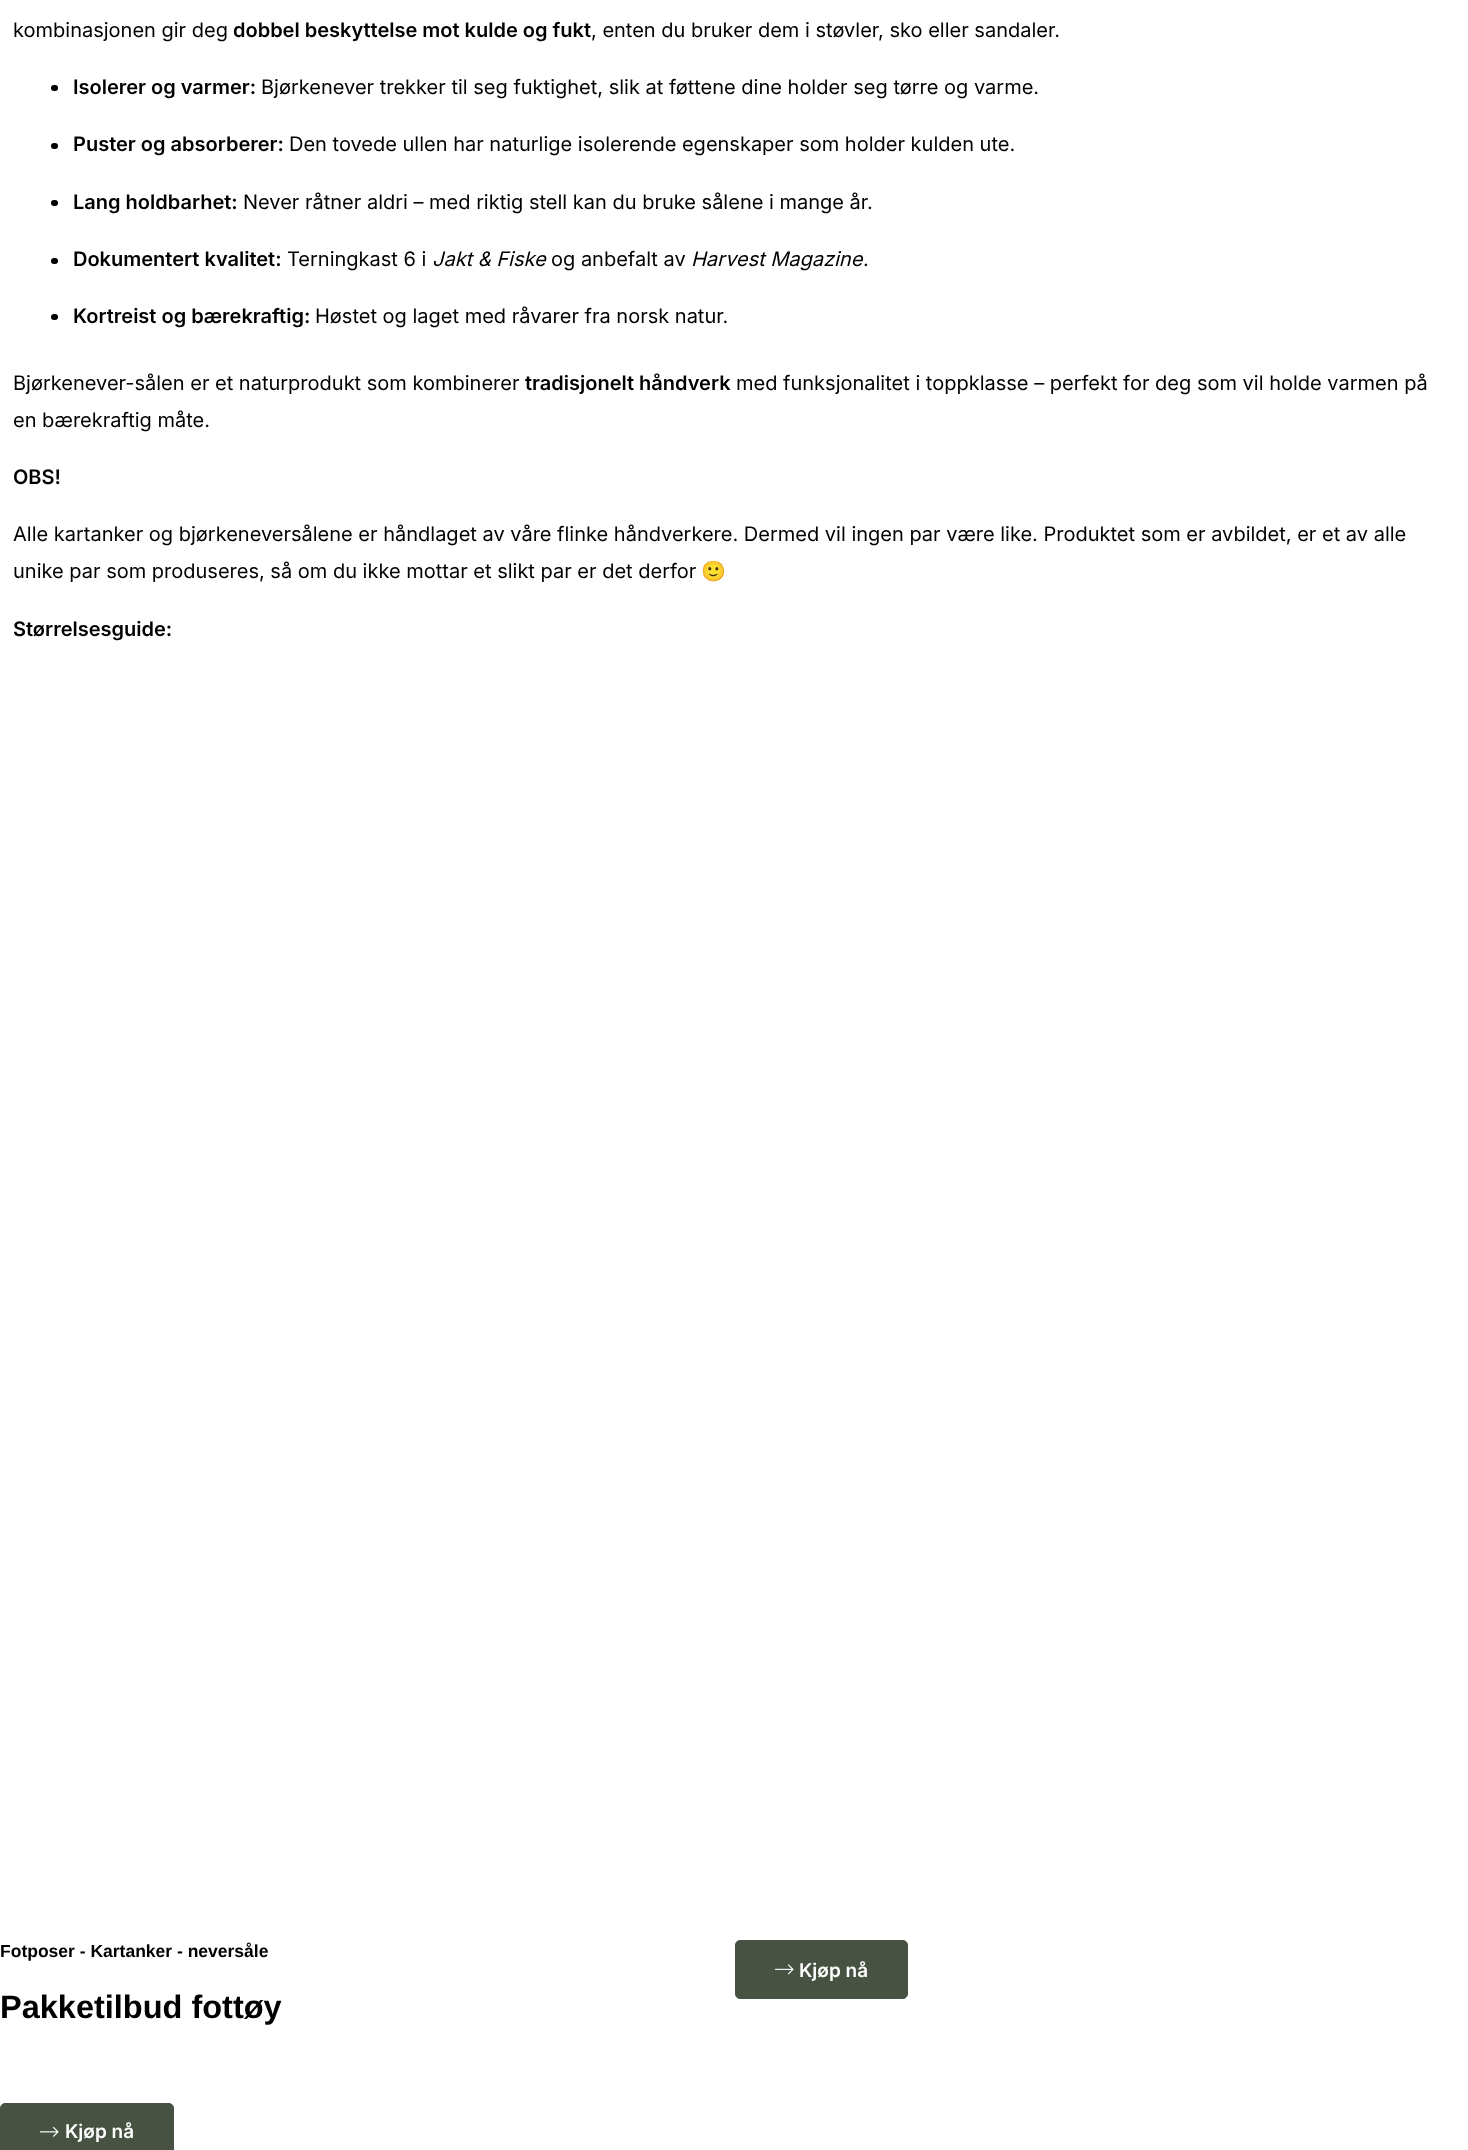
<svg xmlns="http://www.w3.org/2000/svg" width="1468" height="2150">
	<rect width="100%" height="100%" fill="#FFFFFF" />
	<text x="13" y="37" font-family="Inter" font-size="20" fill="#000000">kombinasjonen gir deg</text>
	<text x="233" y="37" font-family="Inter" font-size="20" font-weight="600" fill="#000000">dobbel beskyttelse mot kulde og fukt</text>
	<text x="591" y="37" font-family="Inter" font-size="20" fill="#000000">, enten du bruker dem i støvler, sko eller sandaler.</text>
	<rect x="51" y="85" width="7" height="6" rx="3" fill="#000000" />
	<text x="73" y="94" font-family="Inter" font-size="20" font-weight="600" fill="#000000">Isolerer og varmer:</text>
	<text x="261" y="94" font-family="Inter" font-size="20" fill="#000000">Bjørkenever trekker til seg fuktighet, slik at føttene dine holder seg tørre og varme.</text>
	<rect x="51" y="143" width="7" height="6" rx="3" fill="#000000" />
	<text x="73" y="151" font-family="Inter" font-size="20" font-weight="600" fill="#000000">Puster og absorberer:</text>
	<text x="289" y="151" font-family="Inter" font-size="20" fill="#000000">Den tovede ullen har naturlige isolerende egenskaper som holder kulden ute.</text>
	<rect x="51" y="200" width="7" height="6" rx="3" fill="#000000" />
	<text x="73" y="209" font-family="Inter" font-size="20" font-weight="600" fill="#000000">Lang holdbarhet:</text>
	<text x="243" y="209" font-family="Inter" font-size="20" fill="#000000">Never råtner aldri – med riktig stell kan du bruke sålene i mange år.</text>
	<rect x="51" y="258" width="7" height="6" rx="3" fill="#000000" />
	<text x="73" y="266" font-family="Inter" font-size="20" font-weight="600" fill="#000000">Dokumentert kvalitet:</text>
	<text x="287" y="266" font-family="Inter" font-size="20" fill="#000000">Terningkast 6 i</text>
	<text x="432" y="266" font-family="Inter" font-size="20" font-style="italic" fill="#000000">Jakt &amp; Fiske</text>
	<text x="551" y="266" font-family="Inter" font-size="20" fill="#000000">og anbefalt av</text>
	<text x="691" y="266" font-family="Inter" font-size="20" font-style="italic" fill="#000000">Harvest Magazine</text>
	<text x="863" y="266" font-family="Inter" font-size="20" fill="#000000">.</text>
	<rect x="51" y="314" width="7" height="6" rx="3" fill="#000000" />
	<text x="73" y="323" font-family="Inter" font-size="20" font-weight="600" fill="#000000">Kortreist og bærekraftig:</text>
	<g font-family="Inter" font-size="20" fill="#000000">
		<text x="315" y="323">Høstet og laget med råvarer fra norsk natur.</text>
		<text x="13" y="390">Bjørkenever-sålen er et naturprodukt som kombinerer</text>
	</g>
	<text x="525" y="390" font-family="Inter" font-size="20" font-weight="600" fill="#000000">tradisjonelt håndverk</text>
	<g font-family="Inter" font-size="20" fill="#000000">
		<text x="736" y="390">med funksjonalitet i toppklasse – perfekt for deg som vil holde varmen på</text>
		<text x="13" y="427">en bærekraftig måte.</text>
	</g>
	<text x="13" y="484" font-family="Inter" font-size="20" font-weight="600" fill="#000000">OBS!</text>
	<g font-family="Inter" font-size="20" fill="#000000">
		<text x="13" y="541">Alle kartanker og bjørkeneversålene er håndlaget av våre flinke håndverkere. Dermed vil ingen par være like. Produktet som er avbildet, er et av alle</text>
		<text x="13" y="578">unike par som produseres, så om du ikke mottar et slikt par er det derfor</text>
	</g>
	<text x="701" y="578" font-family="Noto Color Emoji" font-size="20" fill="#000000">🙂</text>
	<text x="13" y="636" font-family="Inter" font-size="20" font-weight="600" fill="#000000">Størrelsesguide:</text>
	<text x="0" y="1957" font-family="Liberation Sans" font-size="17.5" font-weight="700" fill="#000000">Fotposer - Kartanker - neversåle</text>
	<text x="0" y="2018" font-family="Liberation Sans" font-size="32.5" font-weight="700" fill="#000000">Pakketilbud fottøy</text>
	<rect x="0.5" y="2103.5" width="173" height="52" rx="4.5" fill="#475242" stroke="#475242" />
	<image x="40" y="2126" width="19" height="11" href="assets/img1.png" />
	<text x="65" y="2138" font-family="Inter" font-size="19" font-weight="600" fill="#FFFFFF">Kjøp nå</text>
	<rect x="735.5" y="1940.5" width="172" height="58" rx="4.5" fill="#475242" stroke="#475242" />
	<image x="775" y="1964" width="19" height="11" href="assets/img2.png" />
	<text x="799" y="1977" font-family="Inter" font-size="19" font-weight="600" fill="#FFFFFF">Kjøp nå</text>
</svg>
